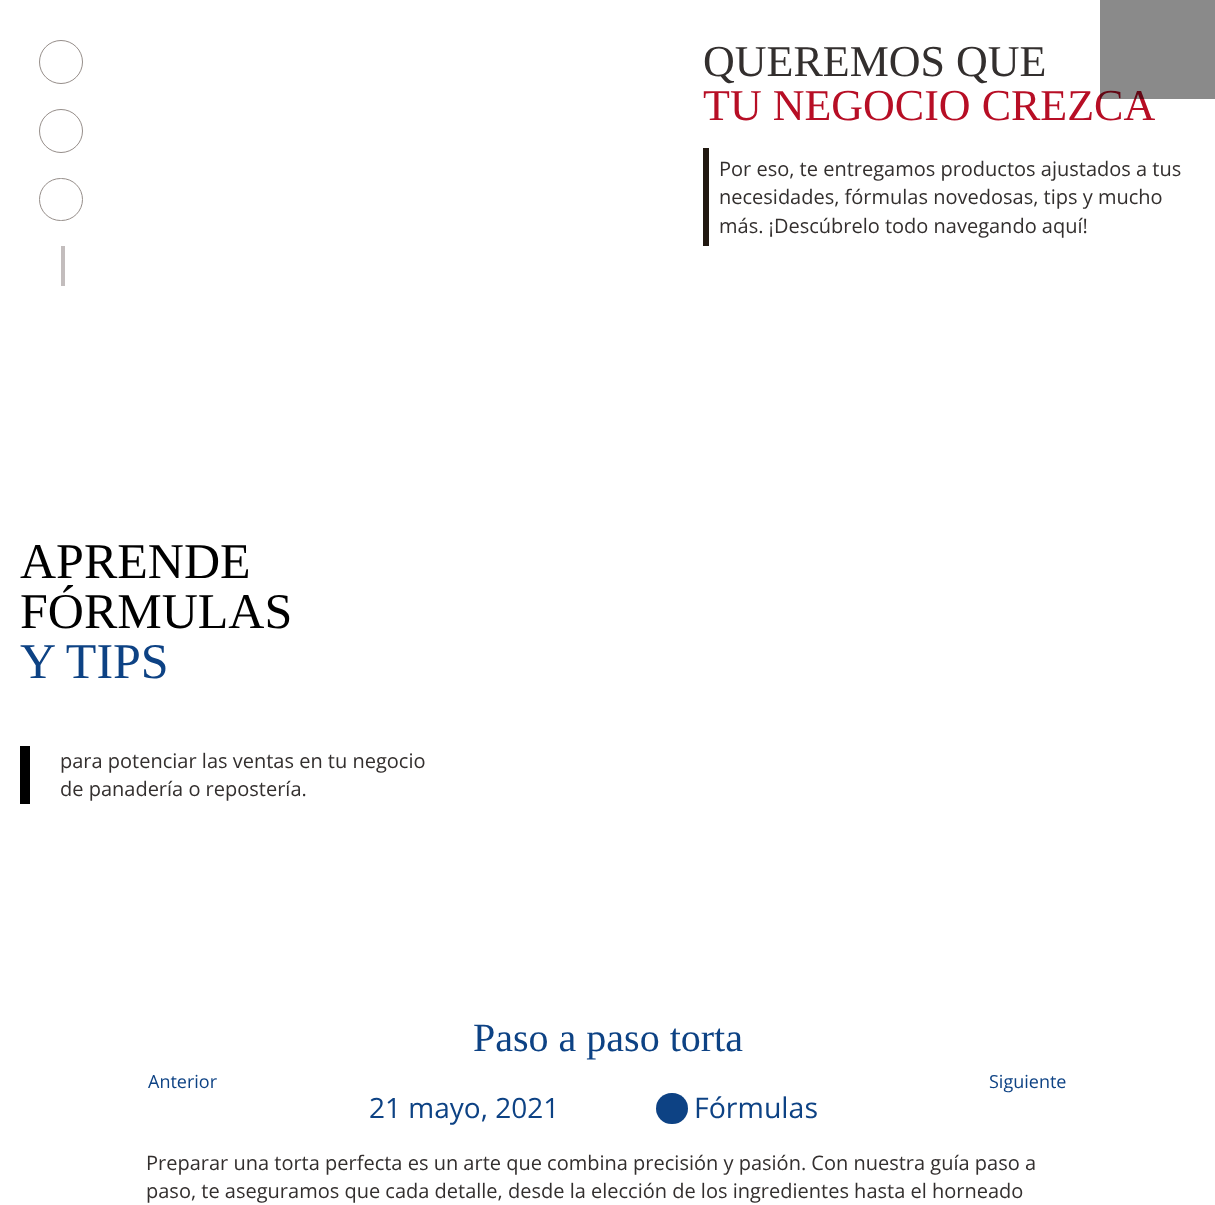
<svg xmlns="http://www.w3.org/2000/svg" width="1215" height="1205">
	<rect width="100%" height="100%" fill="#FFFFFF" />
	<circle cx="61" cy="62" r="21.5" fill="none" stroke="#968E8A" />
	<circle cx="61" cy="131" r="21.5" fill="none" stroke="#968E8A" />
	<rect x="39.5" y="178.5" width="43" height="42" rx="21" fill="none" stroke="#968E8A" />
	<rect x="61" y="246" width="4" height="40" fill="#C3BDBD" />
	<text x="703" y="120" font-family="Liberation Serif" font-size="44" fill="#B70E25">TU NEGOCIO CREZCA</text>
	<rect x="1100" y="0" width="115" height="99" fill="#000000" fill-opacity="0.46" />
	<text x="703" y="76" font-family="Liberation Serif" font-size="44" fill="#332F2E">QUEREMOS QUE</text>
	<rect x="703" y="148" width="6" height="98" fill="#211911" />
	<g font-family="Open Sans" font-size="20" fill="#332F2E">
		<text x="719" y="176">Por eso, te entregamos productos ajustados a tus</text>
		<text x="719" y="204">necesidades, fórmulas novedosas, tips y mucho</text>
		<text x="719" y="233">más. ¡Descúbrelo todo navegando aquí!</text>
	</g>
	<g font-family="Liberation Serif" font-size="50" fill="#000000">
		<text x="20" y="578">APRENDE</text>
		<text x="20" y="628">FÓRMULAS</text>
	</g>
	<text x="20" y="678" font-family="Liberation Serif" font-size="50" fill="#0D4284">Y TIPS</text>
	<rect x="20" y="746" width="10" height="58" fill="#000000" />
	<g font-family="Open Sans" font-size="20" fill="#332F2E">
		<text x="60" y="768">para potenciar las ventas en tu negocio</text>
		<text x="60" y="796">de panadería o repostería.</text>
	</g>
	<text x="473" y="1051" font-family="Liberation Serif" font-size="40" fill="#0D4284">Paso a paso torta</text>
	<g font-family="Open Sans" font-size="18" fill="#0D4284">
		<text x="148" y="1088">Anterior</text>
		<text x="989" y="1088">Siguiente</text>
	</g>
	<text x="369" y="1118" font-family="Open Sans" font-size="28" fill="#0D4284">21 mayo, 2021</text>
	<rect x="656" y="1093" width="32" height="31" rx="15.5" fill="#0D4284" />
	<text x="694" y="1118" font-family="Open Sans" font-size="28.5" fill="#0D4284">Fórmulas</text>
	<g font-family="Open Sans" font-size="20" fill="#332F2E">
		<text x="146" y="1170">Preparar una torta perfecta es un arte que combina precisión y pasión. Con nuestra guía paso a</text>
		<text x="146" y="1198">paso, te aseguramos que cada detalle, desde la elección de los ingredientes hasta el horneado</text>
	</g>
</svg>
